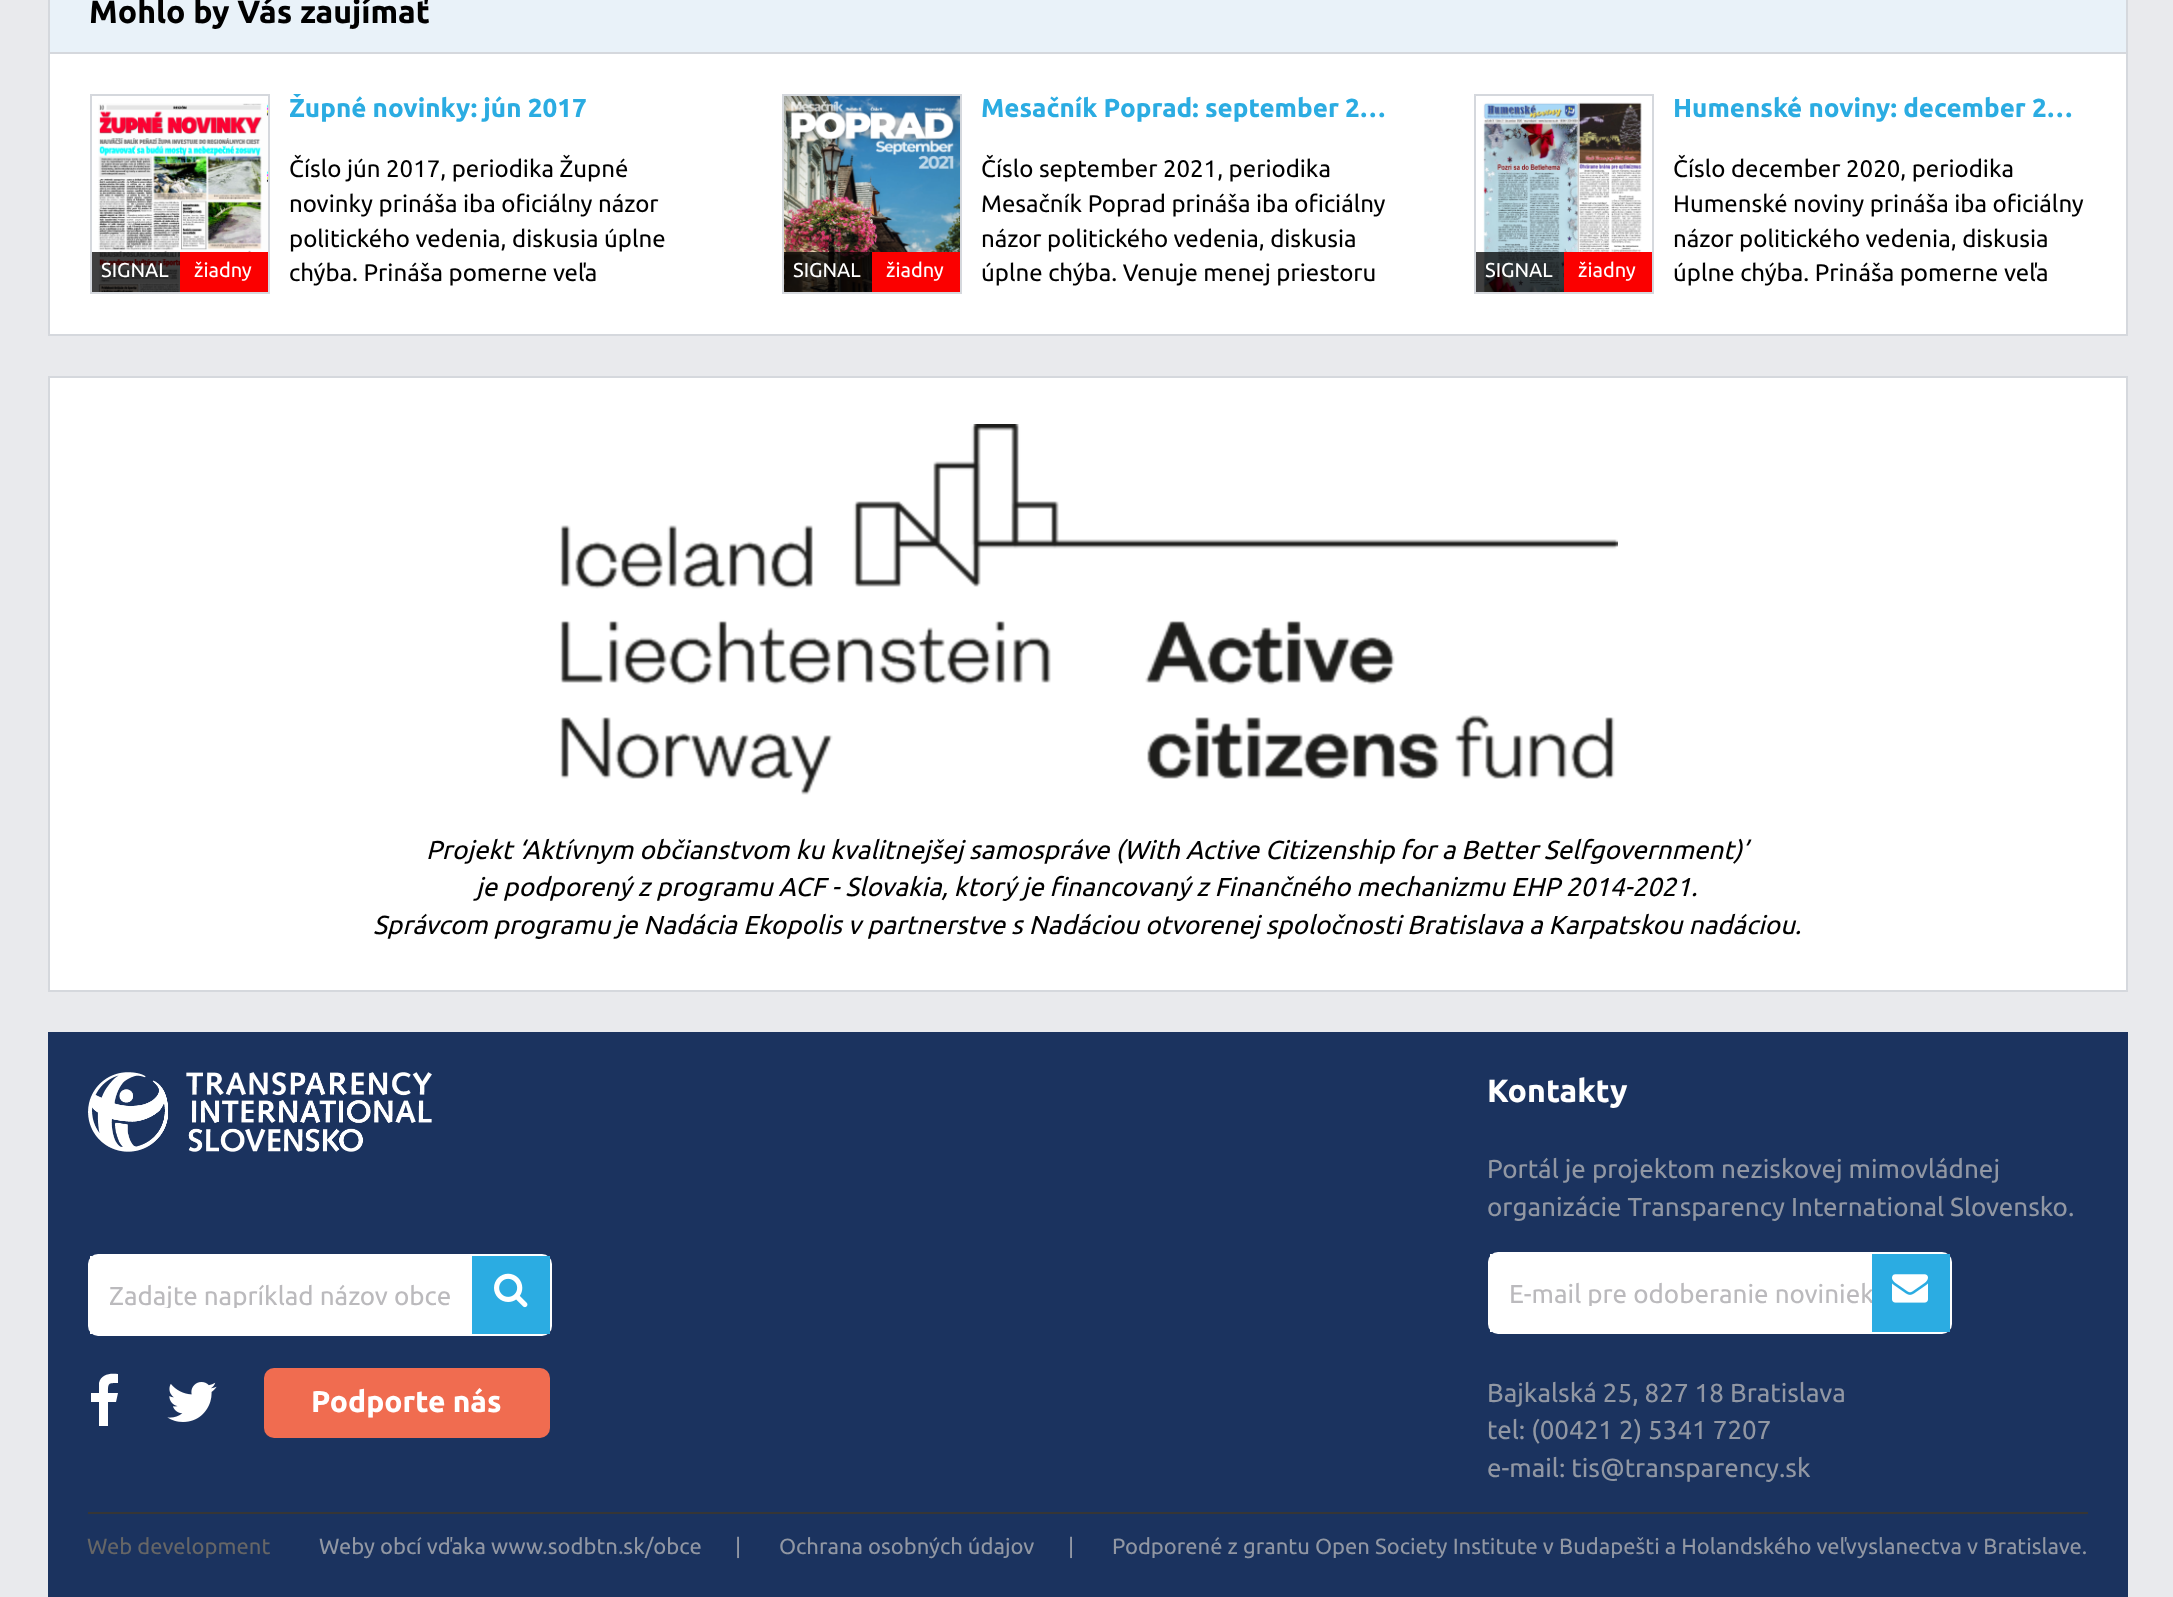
<svg xmlns="http://www.w3.org/2000/svg" width="2173" height="1597">
	<defs>
		<clipPath id="clip1"><rect x="290" y="94" width="412" height="34" /></clipPath>
		<clipPath id="clip2"><rect x="110" y="1280" width="362" height="28" /></clipPath>
		<clipPath id="clip3"><rect x="1510" y="1278" width="362" height="28" /></clipPath>
	</defs>
	<rect width="100%" height="100%" fill="#E9EAED" />
	<rect x="50" y="54" width="2076" height="280" fill="#FFFFFF" />
	<rect x="49" y="-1" width="2078" height="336" fill="none" stroke="#D5D8DD" stroke-width="2" />
	<rect x="50" y="0" width="2076" height="52" fill="#E9F2F9" />
	<rect x="50" y="52" width="2076" height="2" fill="#D5D8DD" />
	<text x="89" y="23" font-family="Ubuntu" font-size="32" font-weight="700" fill="#000000">Mohlo by Vás zaujímať</text>
	<rect x="91" y="95" width="178" height="198" fill="none" stroke="#D5D8DD" stroke-width="2" />
	<image x="98" y="103" width="170" height="189" href="assets/img1.png" />
	<rect x="92" y="252" width="88" height="40" fill="#000000" fill-opacity="0.75" />
	<text x="101" y="277" font-family="Ubuntu" font-size="20" fill="#FFFFFF">SIGNAL</text>
	<rect x="180" y="252" width="88" height="40" fill="#FB0000" />
	<text x="194" y="277" font-family="Ubuntu" font-size="20" fill="#FFFFFF">žiadny</text>
	<g clip-path="url(#clip1)">
		<text x="289" y="117" font-family="Ubuntu" font-size="26" font-weight="700" fill="#2BACE2">Župné novinky: jún 2017</text>
	</g>
	<g font-family="Ubuntu" font-size="24" fill="#000000">
		<text x="289" y="177">Číslo jún 2017, periodika Župné</text>
		<text x="289" y="212">novinky prináša iba oficiálny názor</text>
		<text x="289" y="247">politického vedenia, diskusia úplne</text>
		<text x="289" y="281">chýba. Prináša pomerne veľa</text>
	</g>
	<rect x="783" y="95" width="178" height="198" fill="none" stroke="#D5D8DD" stroke-width="2" />
	<image x="784" y="96" width="176" height="196" href="assets/img2.png" />
	<rect x="784" y="252" width="88" height="40" fill="#000000" fill-opacity="0.75" />
	<text x="793" y="277" font-family="Ubuntu" font-size="20" fill="#FFFFFF">SIGNAL</text>
	<rect x="872" y="252" width="88" height="40" fill="#FB0000" />
	<text x="886" y="277" font-family="Ubuntu" font-size="20" fill="#FFFFFF">žiadny</text>
	<text x="981" y="117" font-family="Ubuntu" font-size="26" font-weight="700" fill="#2BACE2">Mesačník Poprad: september 2…</text>
	<g font-family="Ubuntu" font-size="24" fill="#000000">
		<text x="981" y="177">Číslo september 2021, periodika</text>
		<text x="981" y="212">Mesačník Poprad prináša iba oficiálny</text>
		<text x="981" y="247">názor politického vedenia, diskusia</text>
		<text x="981" y="281">úplne chýba. Venuje menej priestoru</text>
	</g>
	<rect x="1475" y="95" width="178" height="198" fill="none" stroke="#D5D8DD" stroke-width="2" />
	<image x="1483" y="102" width="159" height="190" href="assets/img3.png" />
	<rect x="1476" y="252" width="88" height="40" fill="#000000" fill-opacity="0.75" />
	<text x="1485" y="277" font-family="Ubuntu" font-size="20" fill="#FFFFFF">SIGNAL</text>
	<rect x="1564" y="252" width="88" height="40" fill="#FB0000" />
	<text x="1578" y="277" font-family="Ubuntu" font-size="20" fill="#FFFFFF">žiadny</text>
	<text x="1673" y="117" font-family="Ubuntu" font-size="26" font-weight="700" fill="#2BACE2">Humenské noviny: december 2…</text>
	<g font-family="Ubuntu" font-size="24" fill="#000000">
		<text x="1673" y="177">Číslo december 2020, periodika</text>
		<text x="1673" y="212">Humenské noviny prináša iba oficiálny</text>
		<text x="1673" y="247">názor politického vedenia, diskusia</text>
		<text x="1673" y="281">úplne chýba. Prináša pomerne veľa</text>
	</g>
	<rect x="49" y="377" width="2078" height="614" fill="#FFFFFF" stroke="#D5D8DD" stroke-width="2" />
	<image x="560" y="424" width="1058" height="371" href="assets/img4.png" />
	<g font-family="Ubuntu" font-size="26" font-style="italic" fill="#000000">
		<text x="426" y="859">Projekt ‘Aktívnym občianstvom ku kvalitnejšej samospráve (With Active Citizenship for a Better Selfgovernment)’</text>
		<text x="476" y="896">je podporený z programu ACF - Slovakia, ktorý je financovaný z Finančného mechanizmu EHP 2014-2021.</text>
		<text x="373" y="934">Správcom programu je Nadácia Ekopolis v partnerstve s Nadáciou otvorenej spoločnosti Bratislava a Karpatskou nadáciou.</text>
	</g>
	<rect x="48" y="1032" width="2080" height="565" fill="#1B335F" />
	<image x="88" y="1072" width="344" height="80" href="assets/img5.png" />
	<rect x="88" y="1254" width="464" height="82" rx="10" fill="#FFFFFF" />
	<rect x="90" y="1256" width="2" height="78" fill="#FFFFFF" />
	<g clip-path="url(#clip2)">
		<text x="109" y="1305" font-family="Ubuntu" font-size="26" fill="#BBBABD">Zadajte napríklad názov obce</text>
	</g>
	<rect x="472" y="1256" width="78" height="78" fill="#2BACE2" />
	<image x="494" y="1273" width="34" height="35" href="assets/img6.png" />
	<path d="M118 1374V1383C108 1383 108 1383 108 1393H118L116 1402H108V1426H99V1402H91V1393H99V1383C101 1374 110 1373 118 1374Z" fill="#FFFFFF" />
	<image x="167" y="1382" width="50" height="40" href="assets/img7.png" />
	<rect x="264" y="1368" width="286" height="70" rx="10" fill="#F06C50" />
	<text x="311" y="1412" font-family="Ubuntu" font-size="30" font-weight="700" fill="#FFFFFF">Podporte nás</text>
	<text x="1487" y="1102" font-family="Ubuntu" font-size="32" font-weight="700" fill="#FFFFFF">Kontakty</text>
	<g font-family="Ubuntu" font-size="26" fill="#9197A3">
		<text x="1487" y="1178">Portál je projektom neziskovej mimovládnej</text>
		<text x="1487" y="1216">organizácie Transparency International Slovensko.</text>
	</g>
	<rect x="1488" y="1252" width="464" height="82" rx="10" fill="#FFFFFF" />
	<rect x="1490" y="1254" width="2" height="78" fill="#FFFFFF" />
	<g clip-path="url(#clip3)">
		<text x="1509" y="1303" font-family="Ubuntu" font-size="26" fill="#BBBABD">E-mail pre odoberanie noviniek</text>
	</g>
	<rect x="1872" y="1254" width="78" height="78" fill="#2BACE2" />
	<image x="1892" y="1274" width="36" height="29" href="assets/img8.png" />
	<g font-family="Ubuntu" font-size="26" fill="#9197A3">
		<text x="1487" y="1402">Bajkalská 25, 827 18 Bratislava</text>
		<text x="1487" y="1439">tel: (00421 2) 5341 7207</text>
		<text x="1487" y="1477">e-mail: tis@transparency.sk</text>
	</g>
	<rect x="88" y="1512" width="2000" height="2" fill="#363636" />
	<text x="87" y="1554" font-family="Ubuntu" font-size="22" fill="#666666">Web development</text>
	<g font-family="Ubuntu" font-size="22" fill="#9197A3">
		<text x="319" y="1554">Weby obcí vďaka www.sodbtn.sk/obce</text>
		<text x="735" y="1554">|</text>
		<text x="779" y="1554">Ochrana osobných údajov</text>
		<text x="1068" y="1554">|</text>
		<text x="1112" y="1554">Podporené z grantu Open Society Institute v Budapešti a Holandského veľvyslanectva v Bratislave.</text>
	</g>
</svg>
